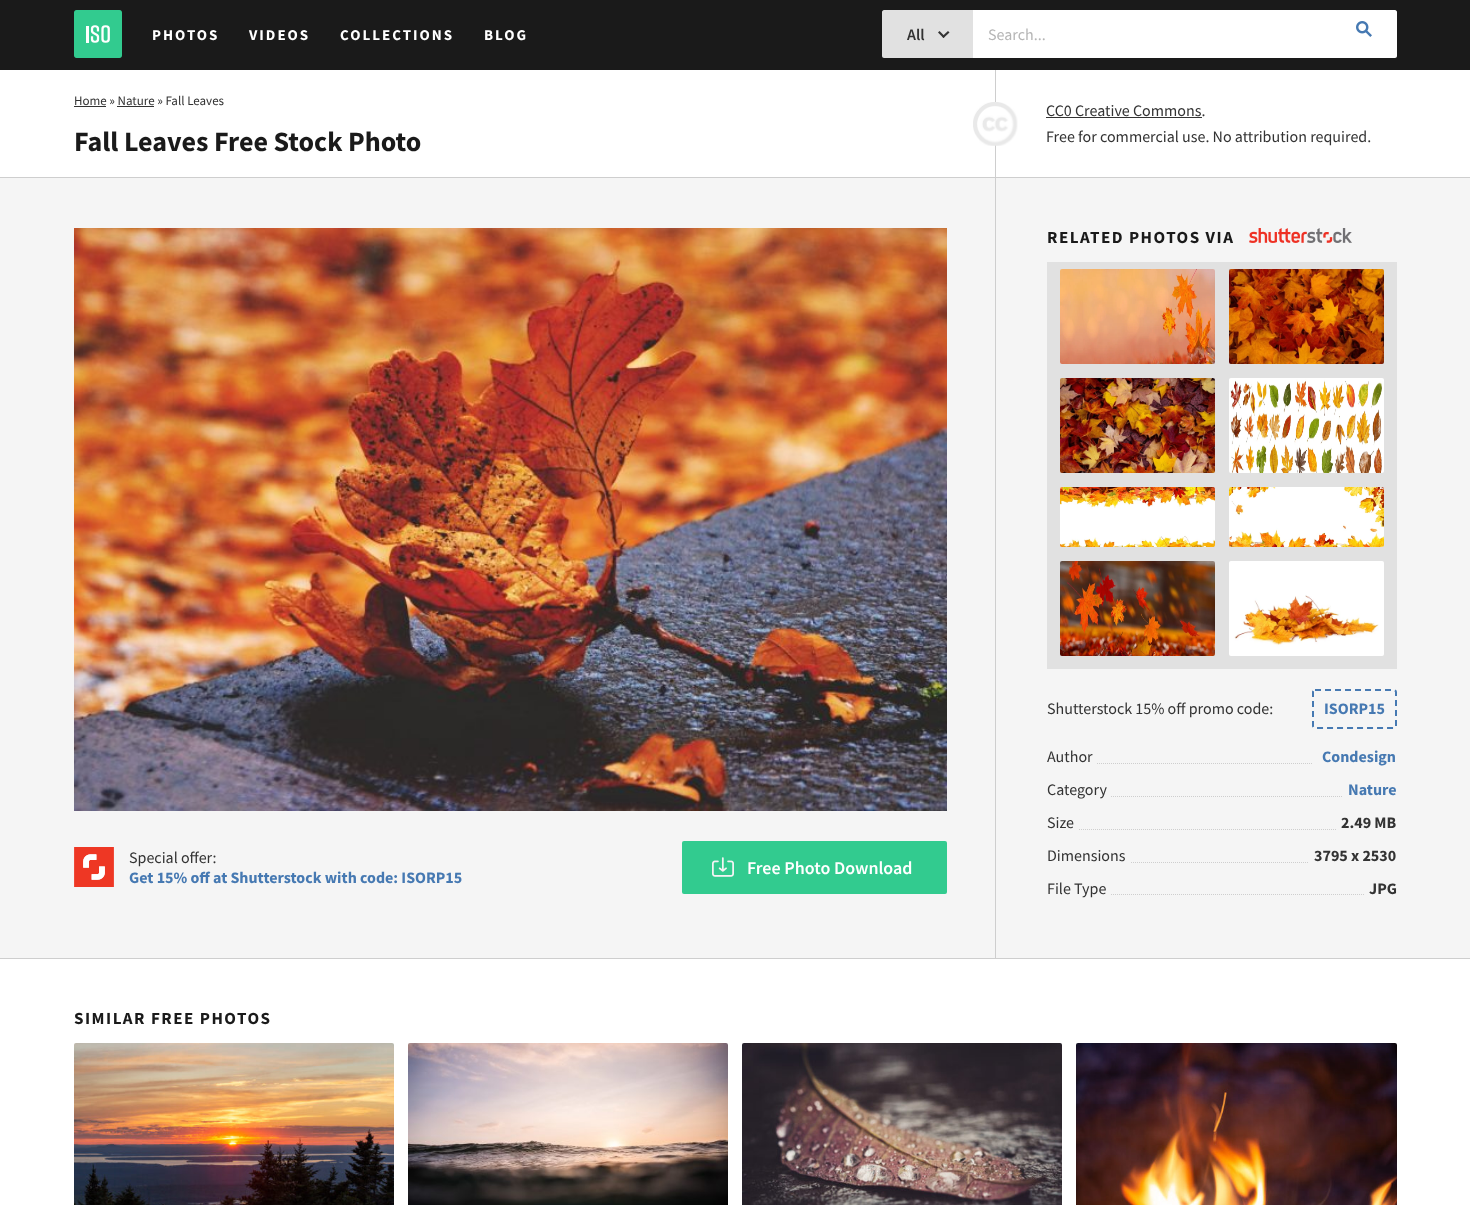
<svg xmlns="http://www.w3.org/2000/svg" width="1470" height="1205">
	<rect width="100%" height="100%" fill="#FFFFFF" />
	<rect x="0" y="0" width="1470" height="70" fill="#1A1A1A" />
	<image x="74" y="10" width="48" height="48" href="assets/img1.png" />
	<g font-family="Source Sans Pro" font-size="15" font-weight="700" letter-spacing="2" fill="#FFFFFF">
		<text x="152" y="40">PHOTOS</text>
		<text x="249" y="40">VIDEOS</text>
		<text x="340" y="40">COLLECTIONS</text>
		<text x="484" y="40">BLOG</text>
	</g>
	<path d="M884 10H973V58H884C883 58 882 57 882 56V12C882 11 883 10 884 10Z" fill="#E1E1E1" />
	<text x="907" y="40" font-family="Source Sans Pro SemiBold" font-size="16" font-weight="600" fill="#333333">All</text>
	<path d="M949.5 32.5L943.5 38L942 36.5L948 31Z" fill="#333333" />
	<path d="M945 36.5L943.5 38L938 32.5L939.5 31Z" fill="#333333" />
	<rect x="973" y="10" width="358" height="48" fill="#FFFFFF" />
	<text x="988" y="40" font-family="Source Sans Pro" font-size="16" fill="#B5B5B5">Search...</text>
	<path d="M1331 10H1395C1396 10 1397 11 1397 12V56C1397 57 1396 58 1395 58H1331Z" fill="#FFFFFF" />
	<image x="1356" y="21" width="16" height="16" href="assets/img2.png" />
	<rect x="0" y="178" width="1470" height="780" fill="#F5F5F5" />
	<rect x="0" y="177" width="1470" height="1" fill="#CECECE" />
	<rect x="0" y="958" width="1470" height="1" fill="#CECECE" />
	<rect x="995" y="70" width="1" height="889" fill="#CECECE" />
	<text x="74" y="105" font-family="Source Sans Pro" font-size="13" fill="#333333">Home » Nature » Fall Leaves</text>
	<rect x="74" y="106" width="32" height="1" fill="#333333" />
	<rect x="117" y="106" width="37" height="1" fill="#333333" />
	<text x="74" y="151" font-family="Source Sans Pro" font-size="28" font-weight="700" fill="#1A1A1A">Fall Leaves Free Stock Photo</text>
	<image x="973" y="102" width="45" height="44" href="assets/img3.png" />
	<text x="1046" y="116" font-family="Source Sans Pro" font-size="16" fill="#333333">CC0 Creative Commons.</text>
	<rect x="1046" y="117" width="156" height="1" fill="#333333" />
	<text x="1046" y="142" font-family="Source Sans Pro" font-size="16" fill="#333333">Free for commercial use. No attribution required.</text>
	<image x="74" y="228" width="873" height="583" href="assets/img4.png" />
	<image x="74" y="847" width="40" height="40" href="assets/img5.png" />
	<text x="129" y="863" font-family="Source Sans Pro" font-size="16" fill="#333333">Special offer:</text>
	<text x="129" y="883" font-family="Source Sans Pro" font-size="16" font-weight="700" fill="#4679B2">Get 15% off at Shutterstock with code: ISORP15</text>
	<rect x="682" y="841" width="265" height="53" rx="2" fill="#32CB8F" />
	<image x="712" y="857" width="22" height="20" href="assets/img6.png" />
	<text x="747" y="874" font-family="Source Sans Pro SemiBold" font-size="18" font-weight="600" fill="#FFFFFF">Free Photo Download</text>
	<text x="1047" y="243" font-family="Source Sans Pro" font-size="17" font-weight="700" letter-spacing="1.5" fill="#1A1A1A">RELATED PHOTOS VIA</text>
	<image x="1249" y="228" width="103" height="15" href="assets/img7.png" />
	<rect x="1047" y="262" width="350" height="407" fill="#E1E1E1" />
	<image x="1060" y="269" width="155" height="95" href="assets/img8.png" />
	<image x="1229" y="269" width="155" height="95" href="assets/img9.png" />
	<image x="1060" y="378" width="155" height="95" href="assets/img10.png" />
	<image x="1229" y="378" width="155" height="95" href="assets/img11.png" />
	<image x="1060" y="487" width="155" height="60" href="assets/img12.png" />
	<image x="1229" y="487" width="155" height="60" href="assets/img13.png" />
	<image x="1060" y="561" width="155" height="95" href="assets/img14.png" />
	<image x="1229" y="561" width="155" height="95" href="assets/img15.png" />
	<text x="1047" y="714" font-family="Source Sans Pro" font-size="16" fill="#333333">Shutterstock 15% off promo code:</text>
	<path d="M1315 690H1394C1395 690 1396 691 1396 692V726C1396 727 1395 728 1394 728H1315C1314 728 1313 727 1313 726V692C1313 691 1314 690 1315 690Z" fill="none" stroke="#4679B2" stroke-width="2" stroke-dasharray="6 4" />
	<text x="1324" y="714" font-family="Source Sans Pro" font-size="16" font-weight="700" fill="#4679B2">ISORP15</text>
	<path d="M1047 763.5H1397" fill="none" stroke="#CECECE" stroke-dasharray="1 1" />
	<rect x="1047" y="763" width="49" height="1" fill="#F5F5F5" />
	<text x="1047" y="762" font-family="Source Sans Pro" font-size="16" fill="#333333">Author</text>
	<rect x="1313" y="763" width="83" height="1" fill="#F5F5F5" />
	<text x="1322" y="762" font-family="Source Sans Pro" font-size="16" font-weight="700" fill="#4679B2">Condesign</text>
	<path d="M1047 796.5H1397" fill="none" stroke="#CECECE" stroke-dasharray="1 1" />
	<rect x="1047" y="796" width="63" height="1" fill="#F5F5F5" />
	<text x="1047" y="795" font-family="Source Sans Pro" font-size="16" fill="#333333">Category</text>
	<rect x="1343" y="796" width="53" height="1" fill="#F5F5F5" />
	<text x="1348" y="795" font-family="Source Sans Pro" font-size="16" font-weight="700" fill="#4679B2">Nature</text>
	<path d="M1047 829.5H1397" fill="none" stroke="#CECECE" stroke-dasharray="1 1" />
	<rect x="1047" y="829" width="31" height="1" fill="#F5F5F5" />
	<text x="1047" y="828" font-family="Source Sans Pro" font-size="16" fill="#333333">Size</text>
	<rect x="1337" y="829" width="59" height="1" fill="#F5F5F5" />
	<text x="1341" y="828" font-family="Source Sans Pro" font-size="16" font-weight="700" fill="#333333">2.49 MB</text>
	<path d="M1047 862.5H1397" fill="none" stroke="#CECECE" stroke-dasharray="1 1" />
	<rect x="1047" y="862" width="83" height="1" fill="#F5F5F5" />
	<text x="1047" y="861" font-family="Source Sans Pro" font-size="16" fill="#333333">Dimensions</text>
	<rect x="1309" y="862" width="87" height="1" fill="#F5F5F5" />
	<text x="1314" y="861" font-family="Source Sans Pro" font-size="16" font-weight="700" fill="#333333">3795 x 2530</text>
	<path d="M1047 894.5H1397" fill="none" stroke="#CECECE" stroke-dasharray="1 1" />
	<rect x="1047" y="894" width="63" height="1" fill="#F5F5F5" />
	<text x="1047" y="894" font-family="Source Sans Pro" font-size="16" fill="#333333">File Type</text>
	<rect x="1365" y="894" width="31" height="1" fill="#F5F5F5" />
	<text x="1369" y="894" font-family="Source Sans Pro" font-size="16" font-weight="700" fill="#333333">JPG</text>
	<text x="74" y="1024" font-family="Source Sans Pro" font-size="17" font-weight="700" letter-spacing="1.5" fill="#1A1A1A">SIMILAR FREE PHOTOS</text>
	<image x="74" y="1043" width="320" height="162" href="assets/img16.png" />
	<image x="408" y="1043" width="320" height="162" href="assets/img17.png" />
	<image x="742" y="1043" width="320" height="162" href="assets/img18.png" />
	<image x="1076" y="1043" width="321" height="162" href="assets/img19.png" />
</svg>
